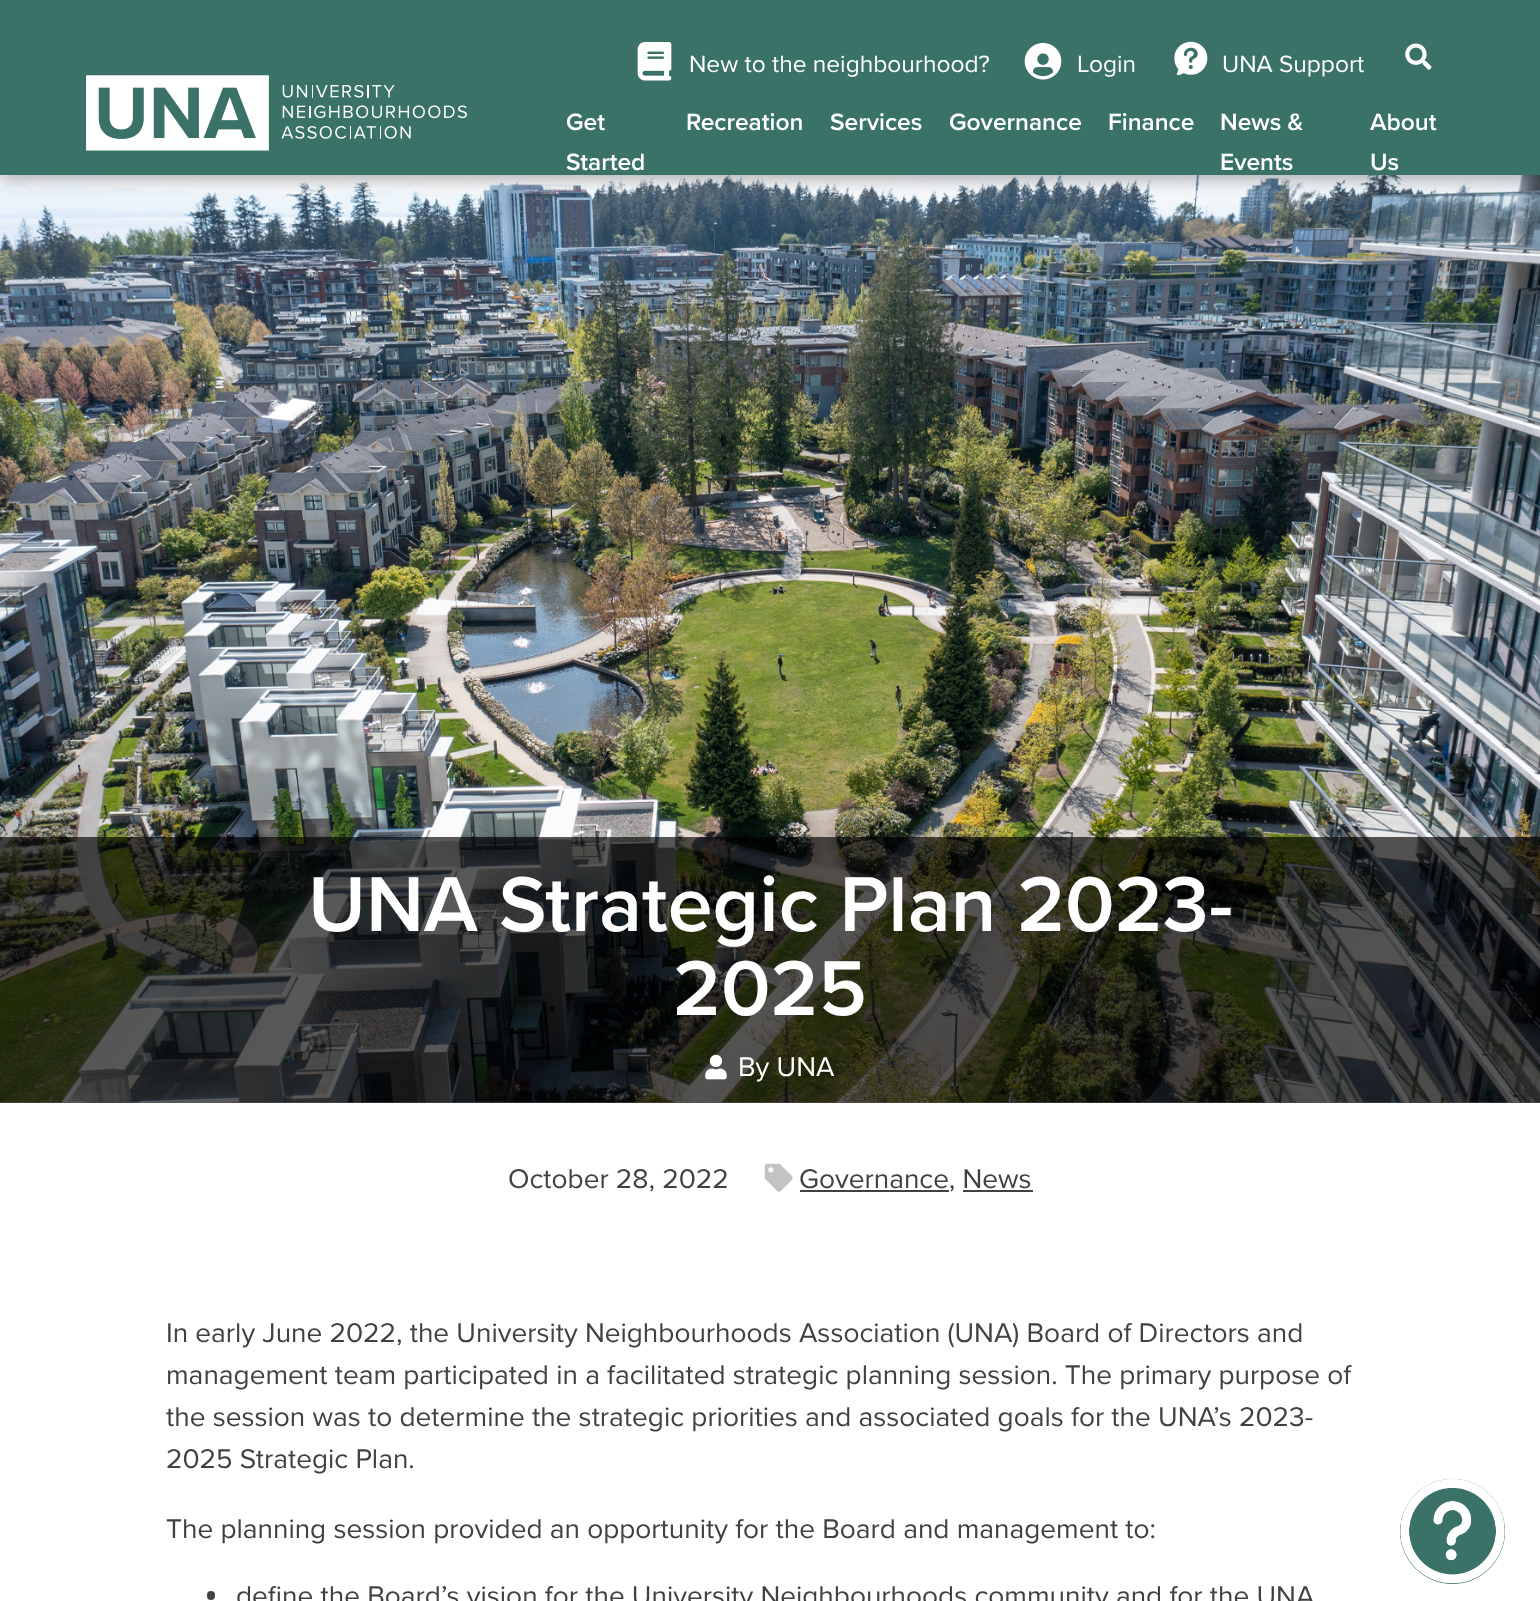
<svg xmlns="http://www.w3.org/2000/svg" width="1540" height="1601">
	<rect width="100%" height="100%" fill="#FFFFFF" />
	<image x="0" y="175" width="1540" height="928" href="assets/img6.png" />
	<rect x="0" y="5" width="1540" height="175" fill="#000000" fill-opacity="0.29" filter="blur(8px)" />
	<rect x="0" y="0" width="1540" height="175" fill="#3B7267" />
	<image x="86" y="75" width="381" height="76" href="assets/img1.png" />
	<image x="637" y="42" width="35" height="39" href="assets/img2.png" />
	<text x="689" y="72" font-family="Proxima Nova" font-size="24.5" fill="#FFFFFF">New to the neighbourhood?</text>
	<image x="1024" y="43" width="38" height="37" href="assets/img3.png" />
	<text x="1077" y="72" font-family="Proxima Nova" font-size="24.5" fill="#FFFFFF">Login</text>
	<image x="1174" y="41" width="34" height="34" href="assets/img4.png" />
	<text x="1222" y="72" font-family="Proxima Nova" font-size="24.5" fill="#FFFFFF">UNA Support</text>
	<image x="1405" y="43" width="27" height="27" href="assets/img5.png" />
	<g font-family="Proxima Nova" font-size="24.5" font-weight="600" fill="#FFFFFF">
		<text x="566" y="130">Get</text>
		<text x="566" y="170">Started</text>
		<text x="686" y="130">Recreation</text>
		<text x="830" y="130">Services</text>
		<text x="949" y="130">Governance</text>
		<text x="1108" y="130">Finance</text>
		<text x="1220" y="130">News &amp;</text>
		<text x="1220" y="170">Events</text>
		<text x="1370" y="130">About</text>
		<text x="1370" y="170">Us</text>
	</g>
	<rect x="0" y="837" width="1540" height="266" fill="#000000" fill-opacity="0.65" />
	<g font-family="Proxima Nova" font-size="80.5" font-weight="600" fill="#FFFFFF">
		<text x="308" y="931">UNA Strategic Plan 2023-</text>
		<text x="673" y="1015">2025</text>
	</g>
	<image x="705" y="1054" width="22" height="26" href="assets/img7.png" />
	<text x="738" y="1076" font-family="Proxima Nova" font-size="28" fill="#FFFFFF">By UNA</text>
	<text x="508" y="1188" font-family="Proxima Nova" font-size="28" fill="#414042">October 28, 2022</text>
	<image x="764" y="1163" width="29" height="29" href="assets/img8.png" />
	<rect x="800" y="1190" width="149" height="2" fill="#414042" />
	<text x="799" y="1188" font-family="Proxima Nova" font-size="28" fill="#414042">Governance, News</text>
	<rect x="963" y="1190" width="70" height="2" fill="#414042" />
	<g font-family="Proxima Nova" font-size="28" fill="#414042">
		<text x="166" y="1342">In early June 2022, the University Neighbourhoods Association (UNA) Board of Directors and</text>
		<text x="166" y="1384">management team participated in a facilitated strategic planning session. The primary purpose of</text>
		<text x="166" y="1426">the session was to determine the strategic priorities and associated goals for the UNA’s 2023-</text>
		<text x="166" y="1468">2025 Strategic Plan.</text>
		<text x="166" y="1538">The planning session provided an opportunity for the Board and management to:</text>
	</g>
	<rect x="207" y="1591" width="8" height="9" rx="4" fill="#414042" />
	<text x="236" y="1605" font-family="Proxima Nova" font-size="28" fill="#414042">define the Board’s vision for the University Neighbourhoods community and for the UNA</text>
	<circle cx="1452.5" cy="1531.5" r="52.5" fill="#3B7267" />
	<image x="1400" y="1479" width="105" height="105" href="assets/img9.png" />
</svg>
